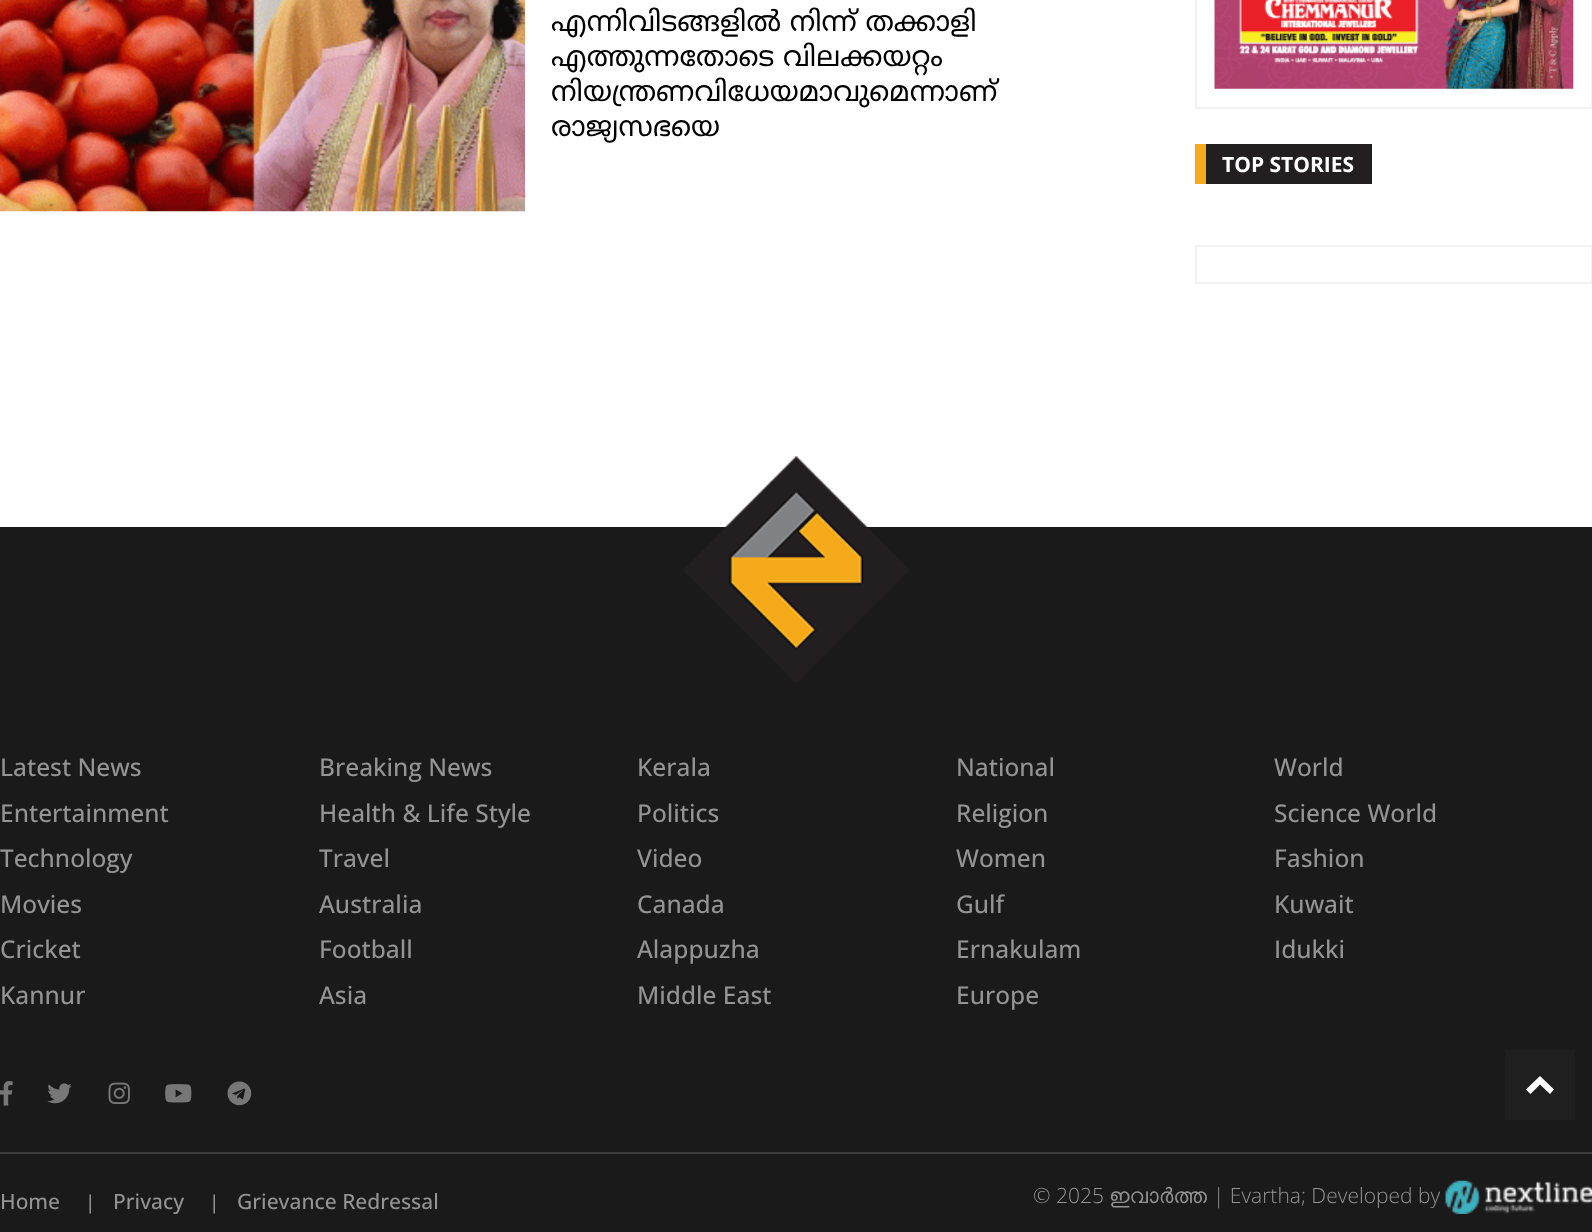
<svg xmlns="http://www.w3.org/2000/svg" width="1592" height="1232">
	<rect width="100%" height="100%" fill="#FFFFFF" />
	<image x="0" y="0" width="525" height="212" href="assets/img1.png" />
	<g font-family="Noto Sans Malayalam" font-size="28" fill="#000000">
		<text x="551" y="31">എന്നിവിടങ്ങളില്‍ നിന്ന് തക്കാളി</text>
		<text x="551" y="66">എത്തുന്നതോടെ വിലക്കയറ്റം</text>
		<text x="551" y="101">നിയന്ത്രണവിധേയമാവുമെന്നാണ്</text>
		<text x="551" y="136">രാജ്യസഭയെ</text>
	</g>
	<rect x="1196" y="-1" width="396" height="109" fill="none" stroke="#F2F2F2" stroke-width="2" />
	<image x="1214" y="0" width="360" height="89" href="assets/img2.png" />
	<rect x="1206" y="144" width="166" height="40" fill="#231F20" />
	<rect x="1195" y="144" width="11" height="40" fill="#F5AA1B" />
	<text x="1222" y="172" font-family="Open Sans" font-size="21" font-weight="700" fill="#FFFFFF">TOP STORIES</text>
	<rect x="1196" y="246" width="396" height="37" fill="none" stroke="#F2F2F2" stroke-width="2" />
	<rect x="0" y="527" width="1592" height="705" fill="#1A1A1A" />
	<image x="683" y="456" width="227" height="227" href="assets/img3.png" />
	<g font-family="Open Sans" font-size="24.5" font-weight="500" fill="#949494">
		<text x="0" y="776">Latest News</text>
		<text x="319" y="776">Breaking News</text>
		<text x="637" y="776">Kerala</text>
		<text x="956" y="776">National</text>
		<text x="1274" y="776">World</text>
		<text x="0" y="822">Entertainment</text>
		<text x="319" y="822">Health &amp; Life Style</text>
		<text x="637" y="822">Politics</text>
		<text x="956" y="822">Religion</text>
		<text x="1274" y="822">Science World</text>
		<text x="0" y="867">Technology</text>
		<text x="319" y="867">Travel</text>
		<text x="637" y="867">Video</text>
		<text x="956" y="867">Women</text>
		<text x="1274" y="867">Fashion</text>
		<text x="0" y="913">Movies</text>
		<text x="319" y="913">Australia</text>
		<text x="637" y="913">Canada</text>
		<text x="956" y="913">Gulf</text>
		<text x="1274" y="913">Kuwait</text>
		<text x="0" y="958">Cricket</text>
		<text x="319" y="958">Football</text>
		<text x="637" y="958">Alappuzha</text>
		<text x="956" y="958">Ernakulam</text>
		<text x="1274" y="958">Idukki</text>
		<text x="0" y="1004">Kannur</text>
		<text x="319" y="1004">Asia</text>
		<text x="637" y="1004">Middle East</text>
		<text x="956" y="1004">Europe</text>
	</g>
	<rect x="0" y="1152" width="1592" height="2" fill="#3D3D3D" />
	<image x="0" y="1081" width="13" height="25" href="assets/img4.png" />
	<image x="47" y="1083" width="25" height="21" href="assets/img5.png" />
	<image x="108" y="1082" width="22" height="22" href="assets/img6.png" />
	<image x="165" y="1084" width="27" height="19" href="assets/img7.png" />
	<image x="227" y="1081" width="25" height="25" href="assets/img8.png" />
	<text x="0" y="1209" font-family="Open Sans" font-size="21" font-weight="500" fill="#949494">Home</text>
	<text x="85" y="1209" font-family="Open Sans" font-size="19" font-weight="500" fill="#949494">|</text>
	<text x="113" y="1209" font-family="Open Sans" font-size="21" font-weight="500" fill="#949494">Privacy</text>
	<text x="209" y="1209" font-family="Open Sans" font-size="19" font-weight="500" fill="#949494">|</text>
	<text x="237" y="1209" font-family="Open Sans" font-size="21" font-weight="500" fill="#949494">Grievance Redressal</text>
	<text x="1033" y="1203" font-family="Open Sans" font-size="21" font-weight="300" fill="#949494">© 2025</text>
	<text x="1109" y="1203" font-family="FreeSans" font-size="21" fill="#949494">ഇവാർത്ത</text>
	<text x="1213" y="1203" font-family="Open Sans" font-size="21" font-weight="300" fill="#949494">| Evartha; Developed by</text>
	<image x="1445" y="1180" width="147" height="34" href="assets/img9.png" />
	<rect x="1505" y="1050" width="70" height="70" fill="#1F1F1F" />
	<path d="M1540 1076L1554 1089.5L1550 1094L1540 1084.5L1530.5 1094L1526 1089.5Z" fill="#FFFFFF" />
</svg>
